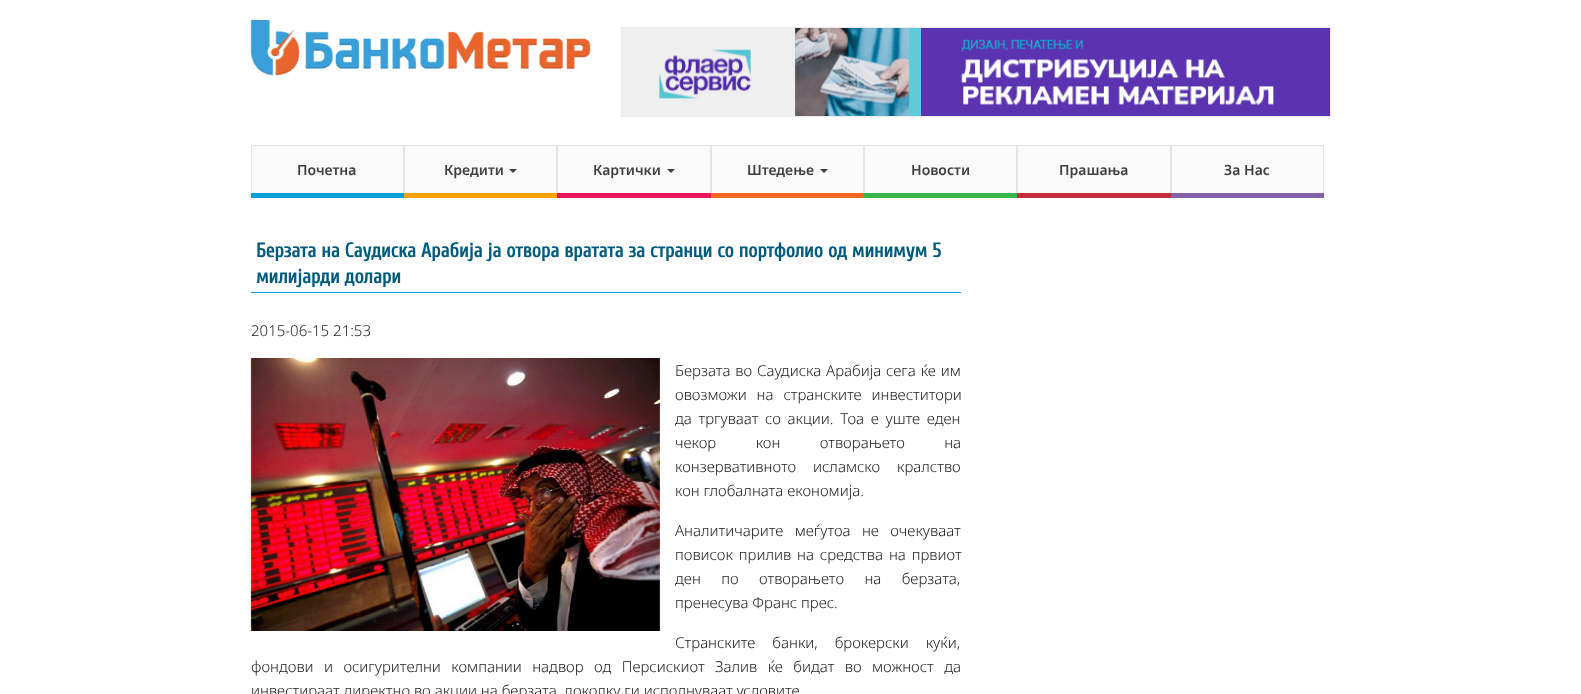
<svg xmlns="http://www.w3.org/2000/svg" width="1581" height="694">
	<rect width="100%" height="100%" fill="#FFFFFF" />
	<image x="250" y="20" width="341" height="56" href="assets/img1.png" />
	<rect x="621.5" y="27.5" width="709" height="89" fill="none" stroke="#EAEAEA" />
	<image x="622" y="28" width="708" height="88" href="assets/img2.png" />
	<rect x="251" y="193" width="153" height="5" fill="#009FDA" />
	<rect x="252" y="146" width="151" height="47" fill="#FAFAFA" />
	<rect x="251" y="145" width="1073" height="1" fill="#E5E5E5" />
	<rect x="403" y="145" width="2" height="48" fill="#E5E5E5" />
	<rect x="251" y="145" width="1" height="48" fill="#E5E5E5" />
	<text x="297" y="175" font-family="Noto Sans" font-size="14" font-weight="600" fill="#3F3F3F">Почетна</text>
	<rect x="404" y="193" width="153" height="5" fill="#FFA200" />
	<rect x="405" y="146" width="151" height="47" fill="#FAFAFA" />
	<rect x="556" y="145" width="2" height="48" fill="#E5E5E5" />
	<text x="444" y="175" font-family="Noto Sans" font-size="14" font-weight="600" fill="#3F3F3F">Кредити</text>
	<path d="M509 169H517L513 173Z" fill="#3F3F3F" />
	<rect x="557" y="193" width="154" height="5" fill="#E8155F" />
	<rect x="558" y="146" width="152" height="47" fill="#FAFAFA" />
	<rect x="710" y="145" width="2" height="48" fill="#E5E5E5" />
	<text x="593" y="175" font-family="Noto Sans" font-size="14" font-weight="600" fill="#3F3F3F">Картички</text>
	<path d="M667 169H675L671 173Z" fill="#3F3F3F" />
	<rect x="711" y="193" width="153" height="5" fill="#F26522" />
	<rect x="712" y="146" width="151" height="47" fill="#FAFAFA" />
	<rect x="863" y="145" width="2" height="48" fill="#E5E5E5" />
	<text x="747" y="175" font-family="Noto Sans" font-size="14" font-weight="600" fill="#3F3F3F">Штедење</text>
	<path d="M820 169H828L824 173Z" fill="#3F3F3F" />
	<rect x="864" y="193" width="153" height="5" fill="#39B54A" />
	<rect x="865" y="146" width="151" height="47" fill="#FAFAFA" />
	<rect x="1016" y="145" width="2" height="48" fill="#E5E5E5" />
	<text x="911" y="175" font-family="Noto Sans" font-size="14" font-weight="600" fill="#3F3F3F">Новости</text>
	<rect x="1017" y="193" width="154" height="5" fill="#C42B3D" />
	<rect x="1018" y="146" width="152" height="47" fill="#FAFAFA" />
	<rect x="1170" y="145" width="2" height="48" fill="#E5E5E5" />
	<text x="1059" y="175" font-family="Noto Sans" font-size="14" font-weight="600" fill="#3F3F3F">Прашања</text>
	<rect x="1171" y="193" width="153" height="5" fill="#8560A8" />
	<rect x="1172" y="146" width="151" height="47" fill="#FAFAFA" />
	<rect x="1323" y="145" width="1" height="48" fill="#E5E5E5" />
	<text x="1224" y="175" font-family="Noto Sans" font-size="14" font-weight="600" fill="#3F3F3F">За Нас</text>
	<rect x="251" y="292" width="710" height="1" fill="#009FDA" />
	<g font-family="Cuprum" font-size="20" font-weight="700" fill="#005B7F">
		<text x="256" y="257">Берзата на Саудиска Арабија ја отвора вратата за странци со портфолио од минимум 5</text>
		<text x="256" y="283">милијарди долари</text>
	</g>
	<text x="251" y="336" font-family="Noto Sans" font-size="15" font-weight="300" fill="#222222">2015-06-15 21:53</text>
	<image x="250" y="358" width="410" height="273" href="assets/img3.png" />
	<g font-family="Noto Sans" font-size="15" font-weight="300" fill="#222222">
		<text x="675" y="376" word-spacing="1">Берзата во Саудиска Арабија сега ќе им</text>
		<text x="675" y="400" word-spacing="6">овозможи на странските инвеститори</text>
		<text x="675" y="424" word-spacing="2.75">да тргуваат со акции. Тоа е уште еден</text>
		<text x="675" y="448" word-spacing="35.5">чекор кон отворањето на</text>
		<text x="675" y="472" word-spacing="13">конзервативното исламско кралство</text>
		<text x="675" y="496">кон глобалната економија.</text>
		<text x="675" y="536" word-spacing="7.5">Аналитичарите меѓутоа не очекуваат</text>
		<text x="675" y="560" word-spacing="2">повисок прилив на средства на првиот</text>
		<text x="675" y="584" word-spacing="16.5">ден по отворањето на берзата,</text>
		<text x="675" y="608">пренесува Франс прес.</text>
		<text x="675" y="648" word-spacing="13">Странските банки, брокерски куќи,</text>
		<text x="251" y="672" word-spacing="6.5">фондови и осигурителни компании надвор од Персискиот Залив ќе бидат во можност да</text>
		<text x="251" y="696">инвестираат директно во акции на берзата, доколку ги исполнуваат условите</text>
	</g>
</svg>
